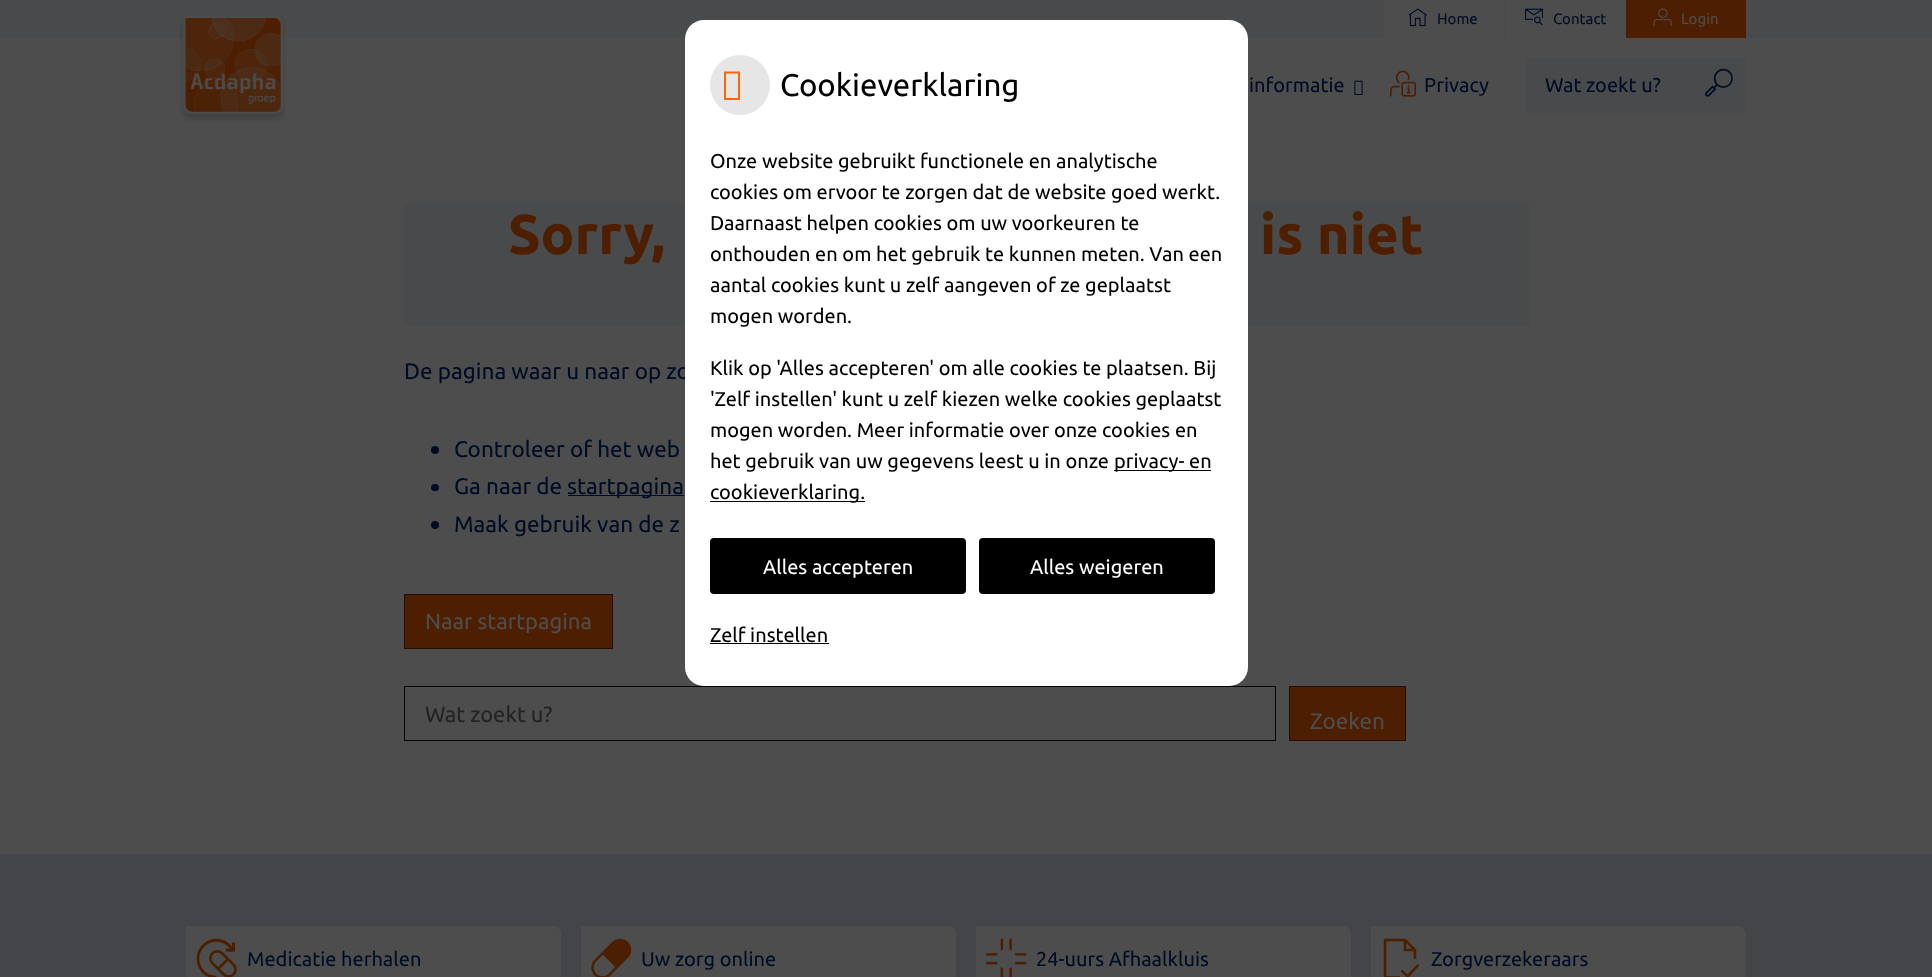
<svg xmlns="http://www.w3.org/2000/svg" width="1932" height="977">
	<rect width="100%" height="100%" fill="#4D4D4D" />
	<rect x="0" y="0" width="1932" height="38" fill="#494A4B" />
	<rect x="1384" y="0" width="120" height="38" fill="#4D4D4D" />
	<image x="1408" y="8" width="19" height="19" href="assets/img1.png" />
	<text x="1437" y="24" font-family="Ubuntu" font-size="15" fill="#000C24">Home</text>
	<rect x="1505" y="0" width="120" height="38" fill="#4D4D4D" />
	<image x="1525" y="8" width="18" height="18" href="assets/img2.png" />
	<text x="1553" y="24" font-family="Ubuntu" font-size="15" fill="#000C24">Contact</text>
	<rect x="1626" y="0" width="120" height="38" fill="#4D1F00" />
	<image x="1653" y="8" width="19" height="18" href="assets/img3.png" />
	<text x="1681" y="24" font-family="Ubuntu" font-size="15" fill="#4D4D4D">Login</text>
	<image x="180" y="16" width="106" height="106" href="assets/img4.png" />
	<text x="1249" y="92" font-family="Ubuntu" font-size="20" fill="#000C24">informatie</text>
	<image x="1354" y="80" width="9" height="15" href="assets/img5.png" />
	<image x="1390" y="70" width="26" height="27" href="assets/img6.png" />
	<text x="1424" y="92" font-family="Ubuntu" font-size="20" fill="#000C24">Privacy</text>
	<path d="M1525 58H1691V113H1529C1527 113 1525 111 1525 109Z" fill="#494A4B" />
	<text x="1545" y="92" font-family="Ubuntu" font-size="20" fill="#000C24">Wat zoekt u?</text>
	<path d="M1691 58H1742C1744 58 1746 60 1746 62V109C1746 111 1744 113 1742 113H1691Z" fill="#494A4B" />
	<image x="1705" y="68" width="28" height="29" href="assets/img7.png" />
	<rect x="404" y="203" width="1125" height="123" fill="#494A4B" />
	<text x="404" y="379" font-family="Ubuntu" font-size="22.5" fill="#000C24">De pagina waar u naar op zo</text>
	<rect x="685" y="20" width="563" height="666" rx="19" fill="#FFFFFF" />
	<circle cx="740" cy="85" r="30" fill="#E6E6E6" />
	<path d="M724 100V71.5H740V100ZM726 98H738V73.5H726Z" fill="#FF6600" />
	<text x="780" y="96" font-family="Ubuntu" font-size="31.25" fill="#000000">Cookieverklaring</text>
	<g font-family="Ubuntu" font-size="20" fill="#000000">
		<text x="710" y="168">Onze website gebruikt functionele en analytische</text>
		<text x="710" y="199">cookies om ervoor te zorgen dat de website goed werkt.</text>
		<text x="710" y="230">Daarnaast helpen cookies om uw voorkeuren te</text>
		<text x="710" y="261">onthouden en om het gebruik te kunnen meten. Van een</text>
		<text x="710" y="292">aantal cookies kunt u zelf aangeven of ze geplaatst</text>
		<text x="710" y="323">mogen worden.</text>
		<text x="710" y="375">Klik op 'Alles accepteren' om alle cookies te plaatsen. Bij</text>
		<text x="710" y="406">'Zelf instellen' kunt u zelf kiezen welke cookies geplaatst</text>
		<text x="710" y="437">mogen worden. Meer informatie over onze cookies en</text>
		<text x="710" y="468">het gebruik van uw gegevens leest u in onze</text>
	</g>
	<rect x="1114" y="470" width="97" height="1" fill="#000000" />
	<text x="1114" y="468" font-family="Ubuntu" font-size="20" fill="#000000">privacy- en</text>
	<rect x="710" y="501" width="155" height="1" fill="#000000" />
	<text x="710" y="499" font-family="Ubuntu" font-size="20" fill="#000000">cookieverklaring.</text>
	<rect x="710" y="538" width="256" height="56" rx="4" fill="#000000" />
	<text x="763" y="574" font-family="Ubuntu" font-size="20" fill="#FFFFFF">Alles accepteren</text>
	<rect x="979" y="538" width="236" height="56" rx="4" fill="#000000" />
	<text x="1030" y="574" font-family="Ubuntu" font-size="20" fill="#FFFFFF">Alles weigeren</text>
	<text x="710" y="642" font-family="Ubuntu" font-size="20" fill="#000000">Zelf instellen</text>
	<rect x="710" y="643" width="119" height="1" fill="#000000" />
	<g font-family="Ubuntu" font-size="56" font-weight="700" fill="#4D1F00">
		<text x="508" y="254">Sorry,</text>
		<text x="1260" y="254">is niet</text>
	</g>
	<circle cx="435" cy="450" r="4" fill="#000C24" />
	<text x="454" y="457" font-family="Ubuntu" font-size="22.5" fill="#000C24">Controleer of het web</text>
	<rect x="431" y="484" width="8" height="7" rx="3.5" fill="#000C24" />
	<text x="454" y="494" font-family="Ubuntu" font-size="22.5" fill="#000C24">Ga naar de</text>
	<rect x="568" y="495" width="116" height="1" fill="#000C24" />
	<text x="567" y="494" font-family="Ubuntu" font-size="22.5" fill="#000C24">startpagina</text>
	<circle cx="435" cy="525" r="4" fill="#000C24" />
	<text x="454" y="532" font-family="Ubuntu" font-size="22.5" fill="#000C24">Maak gebruik van de z</text>
	<rect x="404.5" y="594.5" width="208" height="54" fill="#4D1F00" stroke="#260F00" />
	<text x="425" y="629" font-family="Ubuntu" font-size="22" fill="#4D4D4D">Naar startpagina</text>
	<rect x="404.5" y="686.5" width="871" height="54" fill="none" stroke="#000000" />
	<text x="425" y="722" font-family="Ubuntu" font-size="22" fill="#232323">Wat zoekt u?</text>
	<rect x="1289.5" y="686.5" width="116" height="54" fill="#4D1F00" stroke="#260F00" />
	<text x="1310" y="729" font-family="Ubuntu" font-size="22.5" fill="#4D4D4D">Zoeken</text>
	<rect x="0" y="854" width="1932" height="123" fill="#444548" />
	<path d="M186 926H553C557.5 926 561 929.5 561 934V977C561 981.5 557.5 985 553 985H194C189.5 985 186 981.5 186 977Z" fill="#4D4D4D" />
	<image x="196" y="938" width="41" height="39" href="assets/img8.png" />
	<text x="247" y="966" font-family="Ubuntu" font-size="20" fill="#000C24">Medicatie herhalen</text>
	<path d="M581 926H948C952.5 926 956 929.5 956 934V977C956 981.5 952.5 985 948 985H589C584.5 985 581 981.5 581 977Z" fill="#4D4D4D" />
	<image x="591" y="938" width="41" height="39" href="assets/img9.png" />
	<text x="641" y="966" font-family="Ubuntu" font-size="20" fill="#000C24">Uw zorg online</text>
	<path d="M976 926H1343C1347.5 926 1351 929.5 1351 934V977C1351 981.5 1347.5 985 1343 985H984C979.5 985 976 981.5 976 977Z" fill="#4D4D4D" />
	<image x="986" y="938" width="41" height="39" href="assets/img10.png" />
	<text x="1036" y="966" font-family="Ubuntu" font-size="20" fill="#000C24">24-uurs Afhaalkluis</text>
	<path d="M1371 926H1738C1742.5 926 1746 929.5 1746 934V977C1746 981.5 1742.5 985 1738 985H1379C1374.5 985 1371 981.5 1371 977Z" fill="#4D4D4D" />
	<image x="1383" y="938" width="37" height="39" href="assets/img11.png" />
	<text x="1431" y="966" font-family="Ubuntu" font-size="20" fill="#000C24">Zorgverzekeraars</text>
</svg>
